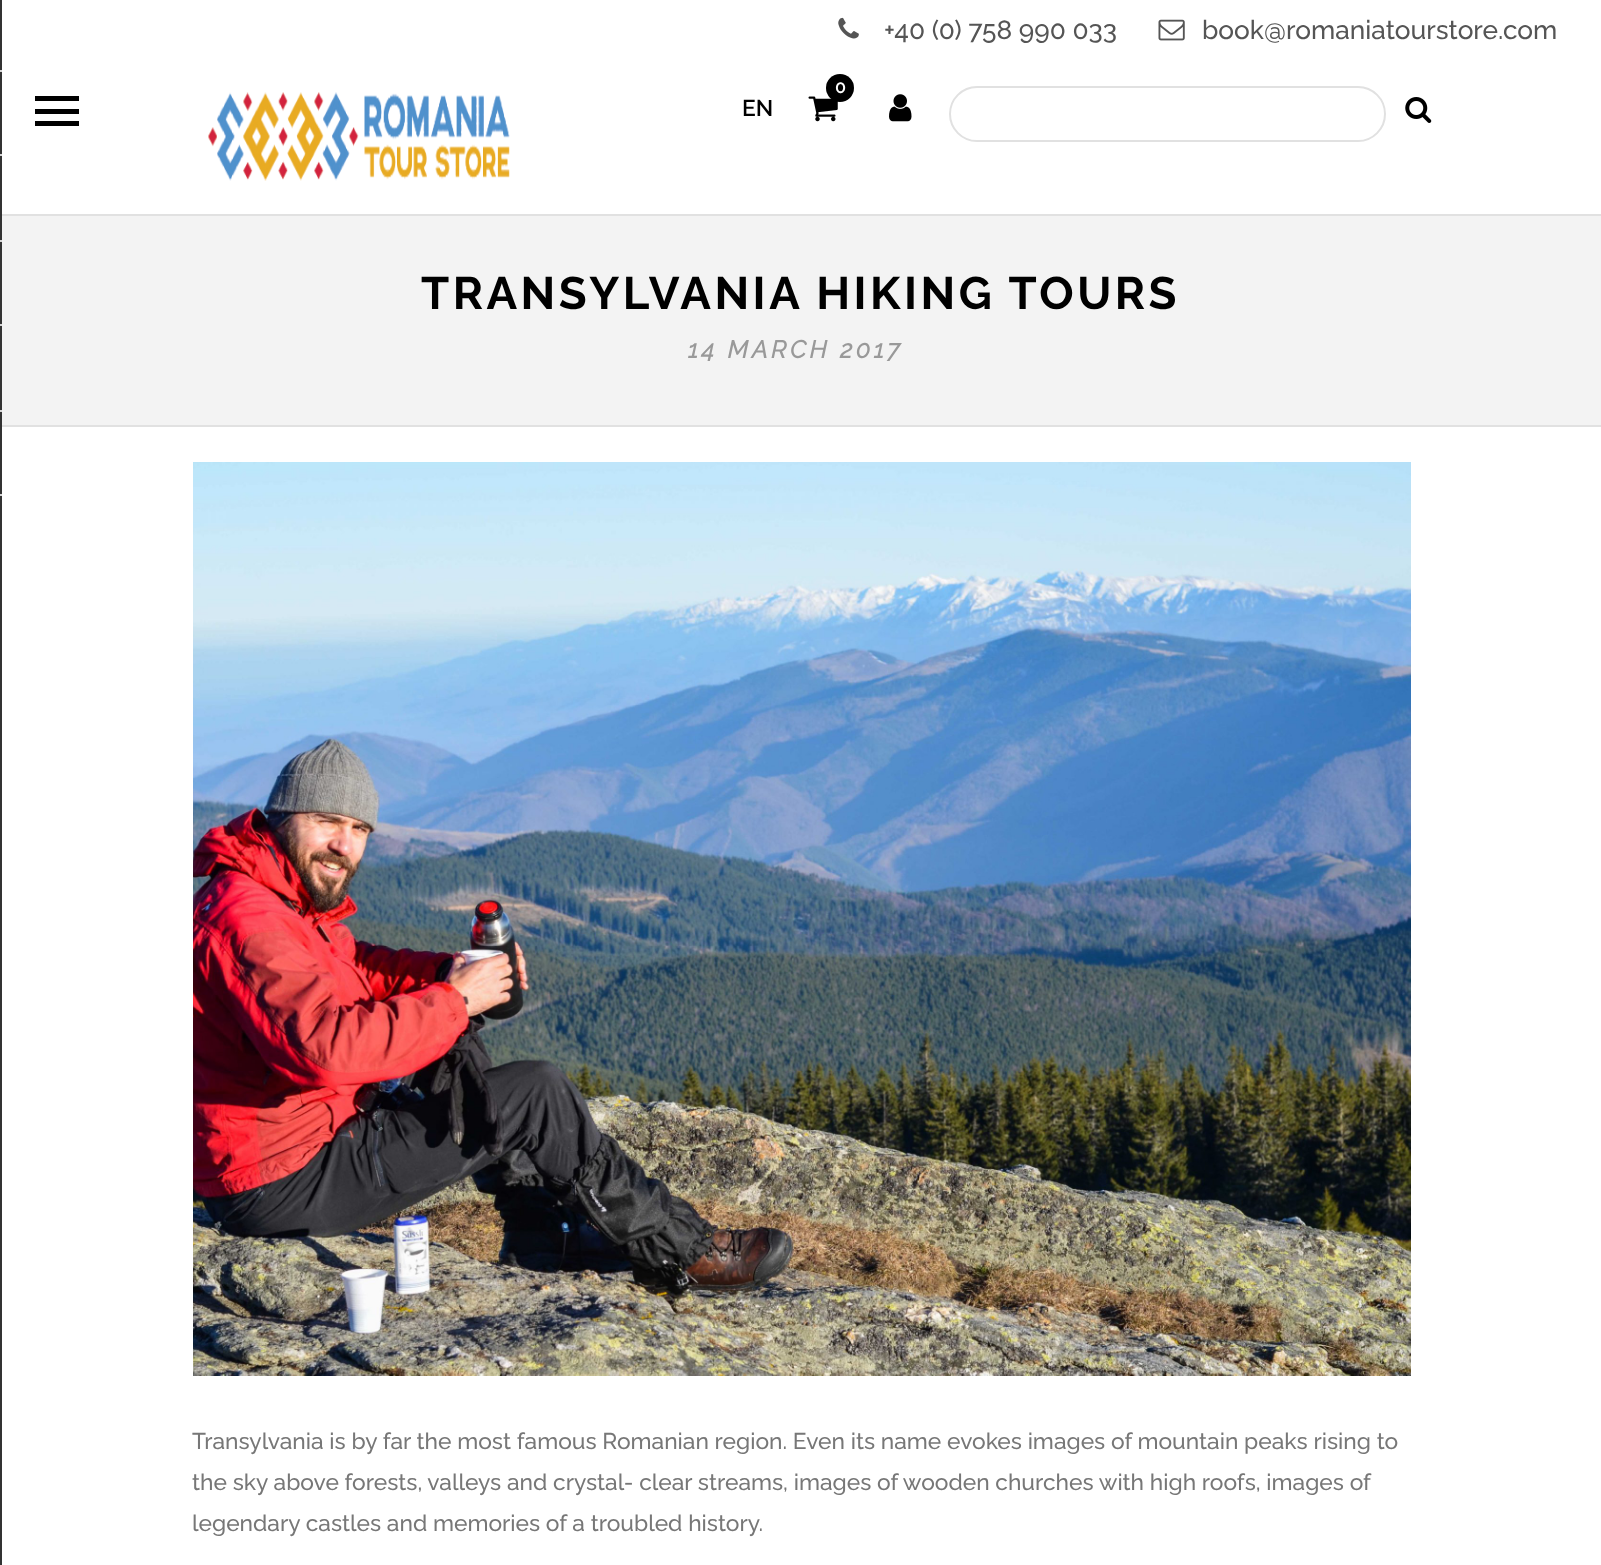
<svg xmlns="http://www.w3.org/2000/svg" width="1601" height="1565">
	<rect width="100%" height="100%" fill="#FFFFFF" />
	<rect x="0" y="214" width="1601" height="2" fill="#E1E1E1" />
	<rect x="0" y="425" width="1601" height="2" fill="#E1E1E1" />
	<rect x="0" y="0" width="2" height="1565" fill="#333333" />
	<rect x="0" y="70" width="2" height="2" fill="#D5D5D5" />
	<rect x="0" y="154" width="2" height="2" fill="#D5D5D5" />
	<rect x="0" y="240" width="2" height="2" fill="#D5D5D5" />
	<rect x="0" y="324" width="2" height="2" fill="#D5D5D5" />
	<rect x="0" y="410" width="2" height="2" fill="#D5D5D5" />
	<rect x="0" y="494" width="2" height="2" fill="#D5D5D5" />
	<image x="838" y="17" width="21" height="22" href="assets/img1.png" />
	<text x="884" y="39" font-family="Raleway" font-size="26.25" font-weight="500" fill="#555555">+40 (0) 758 990 033</text>
	<image x="1158" y="19" width="27" height="22" href="assets/img2.png" />
	<text x="1202" y="39" font-family="Raleway" font-size="26.25" font-weight="500" fill="#555555">book@romaniatourstore.com</text>
	<rect x="35" y="96" width="44" height="5" fill="#000000" />
	<rect x="35" y="109" width="44" height="5" fill="#000000" />
	<rect x="35" y="121" width="44" height="5" fill="#000000" />
	<image x="208" y="92" width="302" height="89" href="assets/img3.png" />
	<image x="808" y="96" width="30" height="26" href="assets/img4.png" />
	<circle cx="840" cy="88" r="14" fill="#000000" />
	<text x="835" y="93" font-family="Raleway" font-size="18" font-weight="600" fill="#FFFFFF">0</text>
	<text x="742" y="116" font-family="Raleway" font-size="22.75" font-weight="600" fill="#000000">EN</text>
	<image x="889" y="94" width="23" height="28" href="assets/img5.png" />
	<rect x="950" y="87" width="435" height="54" rx="27" fill="none" stroke="#E1E1E1" stroke-width="2" />
	<image x="1405" y="97" width="27" height="26" href="assets/img6.png" />
	<rect x="2" y="216" width="1599" height="209" fill="#F3F3F3" />
	<text x="421" y="309" font-family="Raleway" font-size="45.5" font-weight="700" letter-spacing="3.5" fill="#000000">TRANSYLVANIA HIKING TOURS</text>
	<text x="688" y="358" font-family="Raleway" font-size="24.5" font-weight="700" font-style="italic" letter-spacing="3.5" fill="#999999">14 MARCH 2017</text>
	<image x="193" y="462" width="1218" height="914" href="assets/img7.png" />
	<g font-family="Raleway" font-size="22.75" font-weight="500" fill="#777777">
		<text x="192" y="1449">Transylvania is by far the most famous Romanian region. Even its name evokes images of mountain peaks rising to</text>
		<text x="192" y="1490">the sky above forests, valleys and crystal- clear streams, images of wooden churches with high roofs, images of</text>
		<text x="192" y="1531">legendary castles and memories of a troubled history.</text>
	</g>
</svg>
